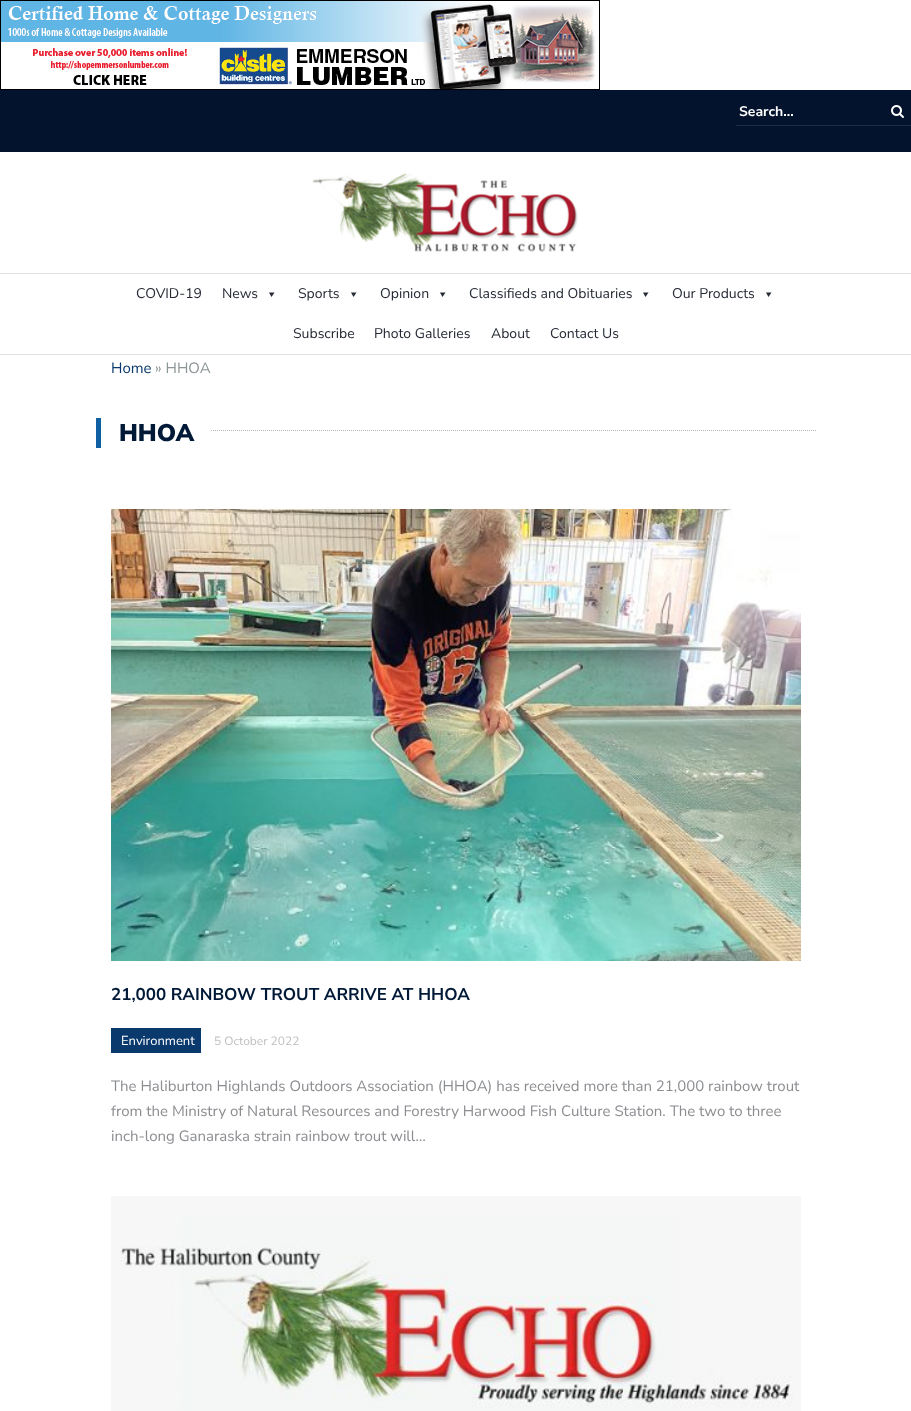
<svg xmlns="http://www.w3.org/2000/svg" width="911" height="1411">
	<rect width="100%" height="100%" fill="#FFFFFF" />
	<image x="0" y="0" width="600" height="90" href="assets/img1.png" />
	<rect x="0" y="90" width="911" height="62" fill="#04132D" />
	<rect x="736" y="125" width="175" height="1" fill="#202D44" />
	<text x="739" y="116" font-family="Nunito Sans" font-size="14" font-weight="700" fill="#FFFFFF">Search...</text>
	<image x="891" y="105" width="13" height="13" href="assets/img2.png" />
	<image x="312" y="173" width="266" height="79" href="assets/img3.png" />
	<rect x="0" y="273" width="911" height="1" fill="#E1E1E1" />
	<rect x="0" y="354" width="911" height="1" fill="#E1E1E1" />
	<g font-family="Nunito Sans" font-size="14" fill="#252A35">
		<text x="136" y="298">COVID-19</text>
		<text x="222" y="298">News</text>
	</g>
	<path d="M274.5 292.5L271.5 297L269 292.5Z" fill="#252A35" />
	<text x="298" y="298" font-family="Nunito Sans" font-size="14" fill="#252A35">Sports</text>
	<path d="M356.5 292.5L353.5 297L351 292.5Z" fill="#252A35" />
	<text x="380" y="298" font-family="Nunito Sans" font-size="14" fill="#252A35">Opinion</text>
	<path d="M445.5 292.5L442.5 297L440 292.5Z" fill="#252A35" />
	<text x="469" y="298" font-family="Nunito Sans" font-size="14" fill="#252A35">Classifieds and Obituaries</text>
	<path d="M648.5 292.5L645.5 297L643 292.5Z" fill="#252A35" />
	<text x="672" y="298" font-family="Nunito Sans" font-size="14" fill="#252A35">Our Products</text>
	<path d="M771.5 292.5L768.5 297L766 292.5Z" fill="#252A35" />
	<g font-family="Nunito Sans" font-size="14" fill="#252A35">
		<text x="293" y="338">Subscribe</text>
		<text x="374" y="338">Photo Galleries</text>
		<text x="491" y="338">About</text>
		<text x="550" y="338">Contact Us</text>
	</g>
	<text x="111" y="373" font-family="Nunito Sans" font-size="15" fill="#0A396D">Home</text>
	<text x="155" y="373" font-family="Nunito Sans" font-size="15" fill="#8C9597">» HHOA</text>
	<rect x="96" y="418" width="5" height="30" fill="#0F5FA3" />
	<path d="M101 430.5H816" fill="none" stroke="#B7B7B7" stroke-dasharray="1 1" />
	<rect x="101" y="430" width="109" height="1" fill="#FFFFFF" />
	<text x="119" y="441" font-family="Nunito Sans" font-size="24" font-weight="900" fill="#001936">HHOA</text>
	<image x="111" y="509" width="690" height="452" href="assets/img4.png" />
	<text x="111" y="1000" font-family="Nunito Sans" font-size="17" font-weight="700" fill="#001936">21,000 RAINBOW TROUT ARRIVE AT HHOA</text>
	<rect x="111" y="1028" width="90" height="25" fill="#0A396D" />
	<text x="121" y="1045" font-family="Nunito Sans" font-size="13" fill="#FFFFFF">Environment</text>
	<text x="214" y="1045" font-family="Nunito Sans" font-size="12" fill="#BFBFBF">5 October 2022</text>
	<g font-family="Nunito Sans" font-size="15" fill="#8B8D91">
		<text x="111" y="1091">The Haliburton Highlands Outdoors Association (HHOA) has received more than 21,000 rainbow trout</text>
		<text x="111" y="1116">from the Ministry of Natural Resources and Forestry Harwood Fish Culture Station. The two to three</text>
		<text x="111" y="1141">inch-long Ganaraska strain rainbow trout will…</text>
	</g>
	<image x="111" y="1196" width="690" height="215" href="assets/img5.png" />
</svg>
